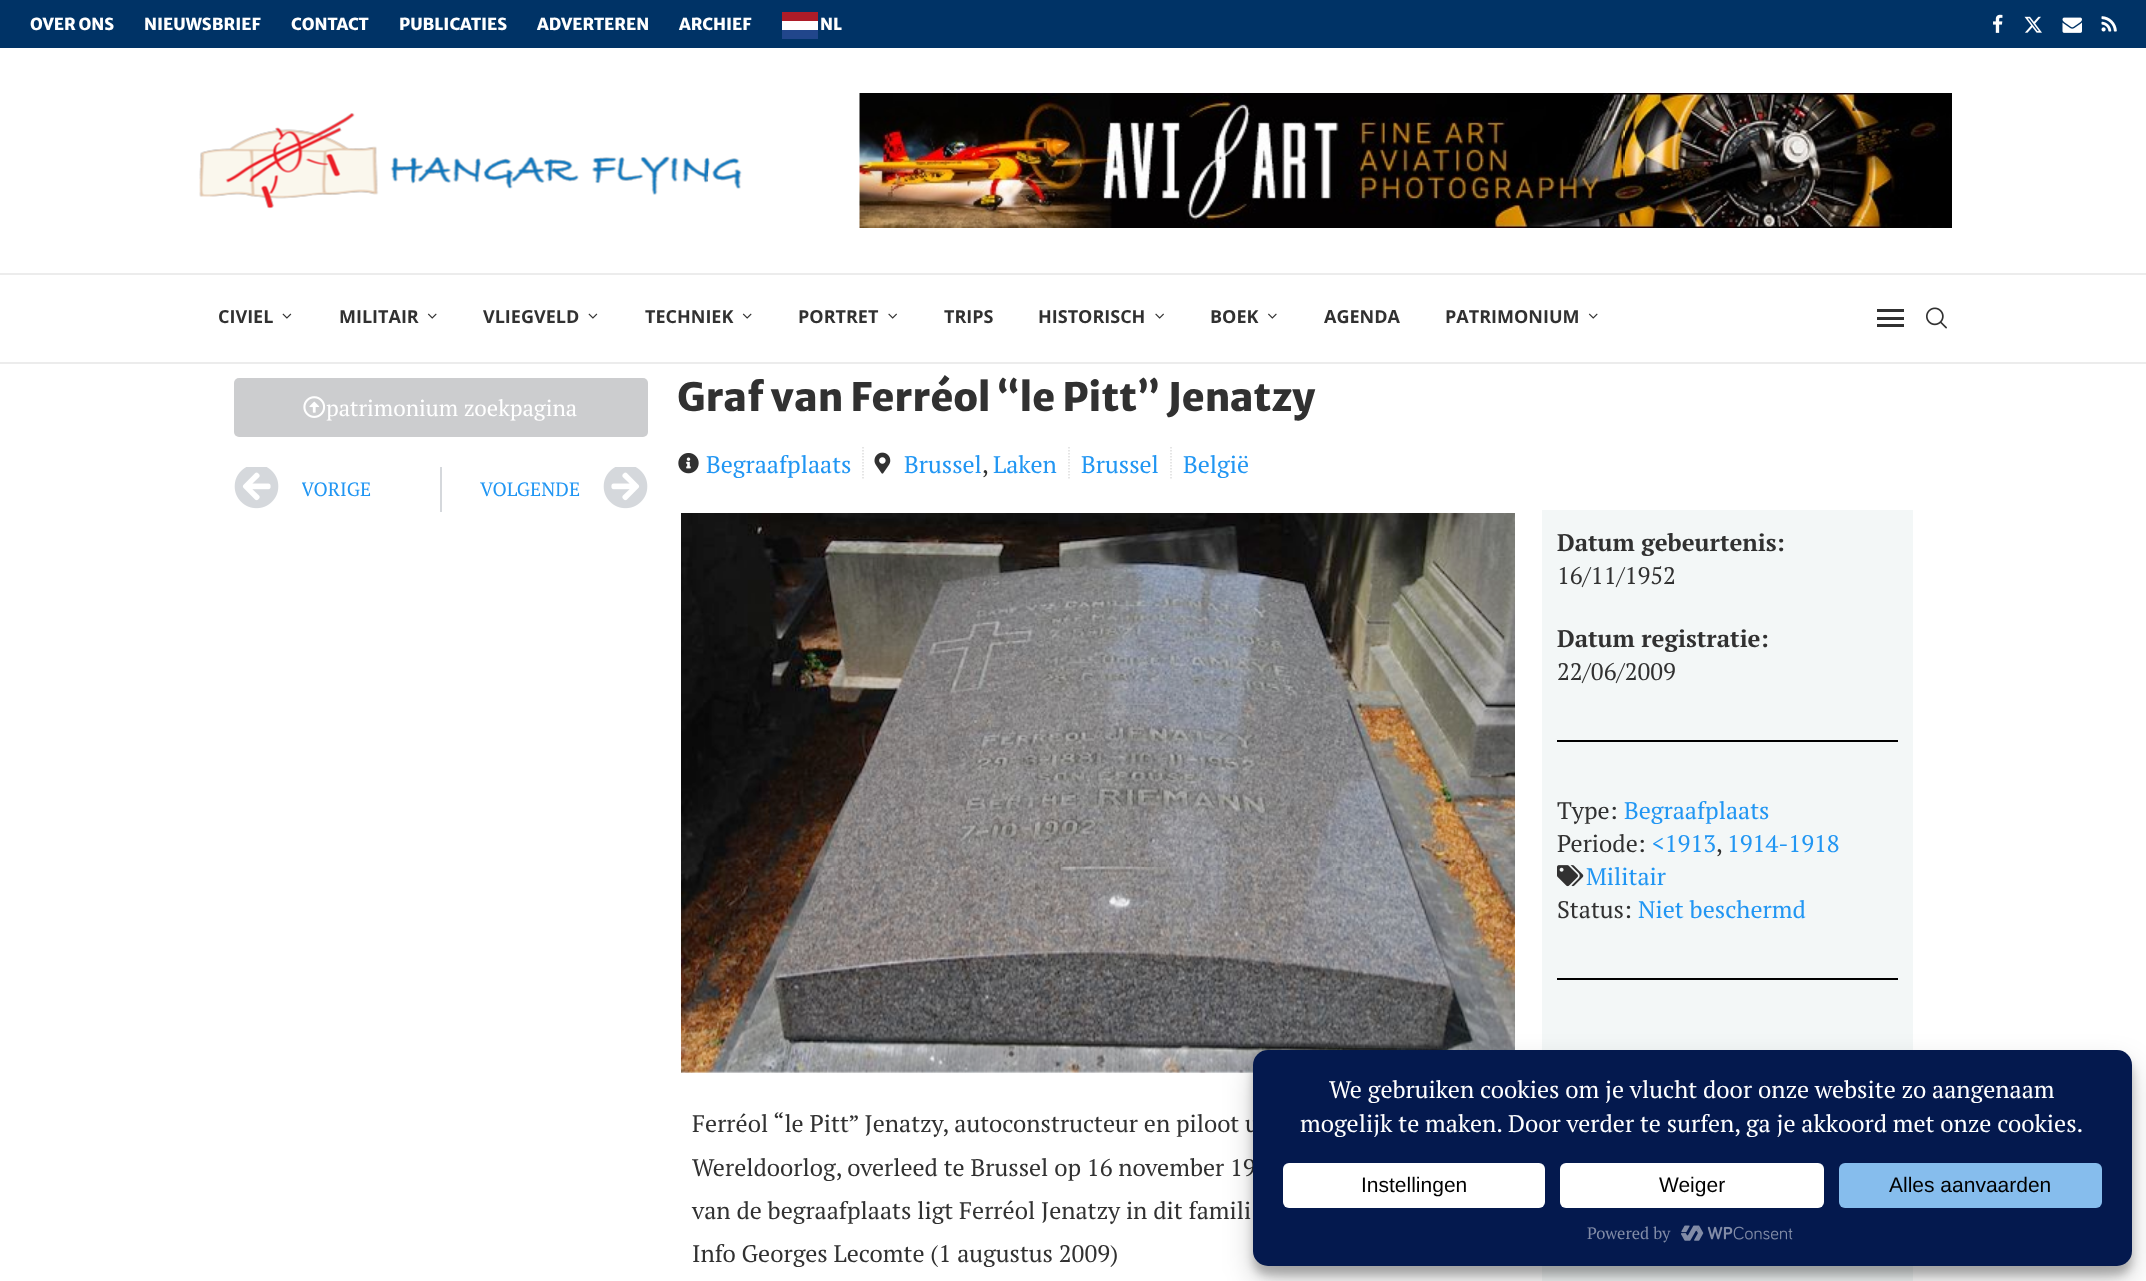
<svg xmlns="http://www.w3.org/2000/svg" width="2146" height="1281">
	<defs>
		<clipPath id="clip1"><rect x="302" y="477" width="69" height="26" /></clipPath>
	</defs>
	<rect width="100%" height="100%" fill="#FFFFFF" />
	<rect x="0" y="0" width="2146" height="48" fill="#003366" />
	<g font-family="Merriweather Sans" font-size="16.5" font-weight="800" fill="#FFFFFF">
		<text x="30" y="30">OVER ONS</text>
		<text x="144" y="30">NIEUWSBRIEF</text>
		<text x="291" y="30">CONTACT</text>
		<text x="399" y="30">PUBLICATIES</text>
		<text x="537" y="30">ADVERTEREN</text>
		<text x="679" y="30">ARCHIEF</text>
	</g>
	<rect x="782" y="12" width="36" height="9" fill="#AE1C28" />
	<text x="820" y="30" font-family="Merriweather Sans" font-size="16.5" font-weight="800" fill="#FFFFFF">NL</text>
	<rect x="782" y="21" width="36" height="9" fill="#FFFFFF" />
	<rect x="782" y="30" width="36" height="9" fill="#21468B" />
	<image x="1993" y="14" width="10" height="19" href="assets/img1.png" />
	<image x="2024" y="16" width="18" height="17" href="assets/img2.png" />
	<image x="2062" y="17" width="20" height="16" href="assets/img3.png" />
	<image x="2101" y="16" width="16" height="16" href="assets/img4.png" />
	<image x="199" y="113" width="543" height="96" href="assets/img5.png" />
	<image x="859" y="93" width="1093" height="135" href="assets/img6.png" />
	<rect x="0" y="273" width="2146" height="2" fill="#ECECEC" />
	<rect x="0" y="362" width="2146" height="2" fill="#ECECEC" />
	<text x="218" y="323" font-family="Open Sans" font-size="18" font-weight="700" fill="#313131">CIVIEL</text>
	<image x="282" y="313" width="10" height="6" href="assets/img7.png" />
	<text x="339" y="323" font-family="Open Sans" font-size="18" font-weight="700" fill="#313131">MILITAIR</text>
	<image x="427" y="313" width="10" height="6" href="assets/img8.png" />
	<text x="483" y="323" font-family="Open Sans" font-size="18" font-weight="700" fill="#313131">VLIEGVELD</text>
	<image x="588" y="313" width="10" height="6" href="assets/img9.png" />
	<text x="645" y="323" font-family="Open Sans" font-size="18" font-weight="700" fill="#313131">TECHNIEK</text>
	<image x="742" y="313" width="10" height="6" href="assets/img10.png" />
	<text x="798" y="323" font-family="Open Sans" font-size="18" font-weight="700" fill="#313131">PORTRET</text>
	<image x="888" y="313" width="9" height="6" href="assets/img11.png" />
	<g font-family="Open Sans" font-size="18" font-weight="700" fill="#313131">
		<text x="944" y="323">TRIPS</text>
		<text x="1038" y="323">HISTORISCH</text>
	</g>
	<image x="1155" y="313" width="9" height="6" href="assets/img12.png" />
	<text x="1210" y="323" font-family="Open Sans" font-size="18" font-weight="700" fill="#313131">BOEK</text>
	<image x="1268" y="313" width="9" height="6" href="assets/img13.png" />
	<g font-family="Open Sans" font-size="18" font-weight="700" fill="#313131">
		<text x="1324" y="323">AGENDA</text>
		<text x="1445" y="323">PATRIMONIUM</text>
	</g>
	<image x="1588" y="313" width="10" height="6" href="assets/img14.png" />
	<rect x="1877" y="309" width="27" height="3" fill="#313131" />
	<rect x="1877" y="324" width="27" height="3" fill="#313131" />
	<rect x="1877" y="317" width="27" height="3" fill="#313131" />
	<image x="1926" y="307" width="21" height="22" href="assets/img15.png" />
	<rect x="234" y="378" width="414" height="59" rx="5" fill="#CCCDCF" />
	<image x="303" y="396" width="23" height="22" href="assets/img16.png" />
	<text x="326" y="416" font-family="PT Serif" font-size="22.5" fill="#FFFFFF">patrimonium zoekpagina</text>
	<image x="234" y="467" width="45" height="42" href="assets/img17.png" />
	<g clip-path="url(#clip1)">
		<text x="301" y="496" font-family="PT Serif" font-size="19.25" fill="#2196F3">VORIGE</text>
	</g>
	<rect x="440" y="467" width="2" height="45" fill="#D5D8DC" />
	<text x="480" y="496" font-family="PT Serif" font-size="19.25" fill="#2196F3">VOLGENDE</text>
	<image x="603" y="467" width="45" height="42" href="assets/img18.png" />
	<text x="677" y="411" font-family="Merriweather Sans" font-size="39" font-weight="800" fill="#313131">Graf van Ferréol “le Pitt” Jenatzy</text>
	<image x="678" y="453" width="21" height="21" href="assets/img19.png" />
	<text x="706" y="473" font-family="PT Serif" font-size="24" fill="#2196F3">Begraafplaats</text>
	<path d="M863 447V480" fill="none" stroke="#DDDDDD" stroke-width="1.5" stroke-dasharray="1.5 1.5" />
	<image x="874" y="452" width="17" height="22" href="assets/img20.png" />
	<text x="904" y="473" font-family="PT Serif" font-size="24" fill="#2196F3">Brussel</text>
	<text x="982" y="473" font-family="PT Serif" font-size="24" fill="#313131">,</text>
	<text x="993" y="473" font-family="PT Serif" font-size="24" fill="#2196F3">Laken</text>
	<path d="M1069 447V480" fill="none" stroke="#DDDDDD" stroke-width="1.5" stroke-dasharray="1.5 1.5" />
	<text x="1081" y="473" font-family="PT Serif" font-size="24" fill="#2196F3">Brussel</text>
	<path d="M1171 447V480" fill="none" stroke="#DDDDDD" stroke-width="1.5" stroke-dasharray="1.5 1.5" />
	<text x="1183" y="473" font-family="PT Serif" font-size="24" fill="#2196F3">België</text>
	<rect x="1542" y="510" width="371" height="771" fill="#F3F7F7" />
	<text x="1557" y="551" font-family="PT Serif" font-size="24" font-weight="700" fill="#313131">Datum gebeurtenis:</text>
	<text x="1557" y="584" font-family="PT Serif" font-size="24" fill="#313131">16/11/1952</text>
	<text x="1557" y="647" font-family="PT Serif" font-size="24" font-weight="700" fill="#313131">Datum registratie:</text>
	<text x="1557" y="680" font-family="PT Serif" font-size="24" fill="#313131">22/06/2009</text>
	<rect x="1557" y="740" width="341" height="2" fill="#000000" />
	<text x="1557" y="819" font-family="PT Serif" font-size="24" fill="#313131">Type:</text>
	<text x="1624" y="819" font-family="PT Serif" font-size="24" fill="#2196F3">Begraafplaats</text>
	<text x="1557" y="852" font-family="PT Serif" font-size="24" fill="#313131">Periode:</text>
	<text x="1652" y="852" font-family="PT Serif" font-size="24" fill="#2196F3">&lt;1913</text>
	<text x="1716" y="852" font-family="PT Serif" font-size="24" fill="#313131">,</text>
	<text x="1727" y="852" font-family="PT Serif" font-size="24" fill="#2196F3">1914-1918</text>
	<image x="1557" y="865" width="27" height="22" href="assets/img21.png" />
	<text x="1586" y="885" font-family="PT Serif" font-size="24" fill="#2196F3">Militair</text>
	<text x="1557" y="918" font-family="PT Serif" font-size="24" fill="#313131">Status:</text>
	<text x="1638" y="918" font-family="PT Serif" font-size="24" fill="#2196F3">Niet beschermd</text>
	<rect x="1557" y="978" width="341" height="2" fill="#000000" />
	<image x="681" y="513" width="834" height="560" href="assets/img22.png" />
	<g font-family="PT Serif" font-size="24" fill="#313131">
		<text x="692" y="1132">Ferréol “le Pitt” Jenatzy, autoconstructeur en piloot u</text>
		<text x="692" y="1176">Wereldoorlog, overleed te Brussel op 16 november 19</text>
		<text x="692" y="1219">van de begraafplaats ligt Ferréol Jenatzy in dit famili</text>
		<text x="692" y="1262">Info Georges Lecomte (1 augustus 2009)</text>
	</g>
	<rect x="1253" y="1059" width="879" height="216" rx="15" fill="#000000" fill-opacity="0.23" filter="blur(4.5px)" />
	<rect x="1253" y="1065" width="879" height="216" rx="15" fill="#000000" fill-opacity="0.19" filter="blur(15px)" />
	<rect x="1253" y="1050" width="879" height="216" rx="15" fill="#04194E" />
	<g font-family="PT Serif" font-size="24" fill="#FFFFFF">
		<text x="1329" y="1098">We gebruiken cookies om je vlucht door onze website zo aangenaam</text>
		<text x="1300" y="1132">mogelijk te maken. Door verder te surfen, ga je akkoord met onze cookies.</text>
	</g>
	<rect x="1283" y="1163" width="262" height="45" rx="6" fill="#FFFFFF" />
	<text x="1361" y="1192" font-family="Liberation Sans" font-size="21" fill="#000000">Instellingen</text>
	<rect x="1560" y="1163" width="264" height="45" rx="6" fill="#FFFFFF" />
	<text x="1659" y="1192" font-family="Liberation Sans" font-size="21" fill="#000000">Weiger</text>
	<rect x="1839" y="1163" width="263" height="45" rx="6" fill="#86BDED" />
	<text x="1889" y="1192" font-family="Liberation Sans" font-size="21" fill="#000000">Alles aanvaarden</text>
	<text x="1587" y="1239" font-family="PT Serif" font-size="16.5" fill="#828CA7">Powered by</text>
	<image x="1681" y="1225" width="112" height="16" href="assets/img23.png" />
</svg>
